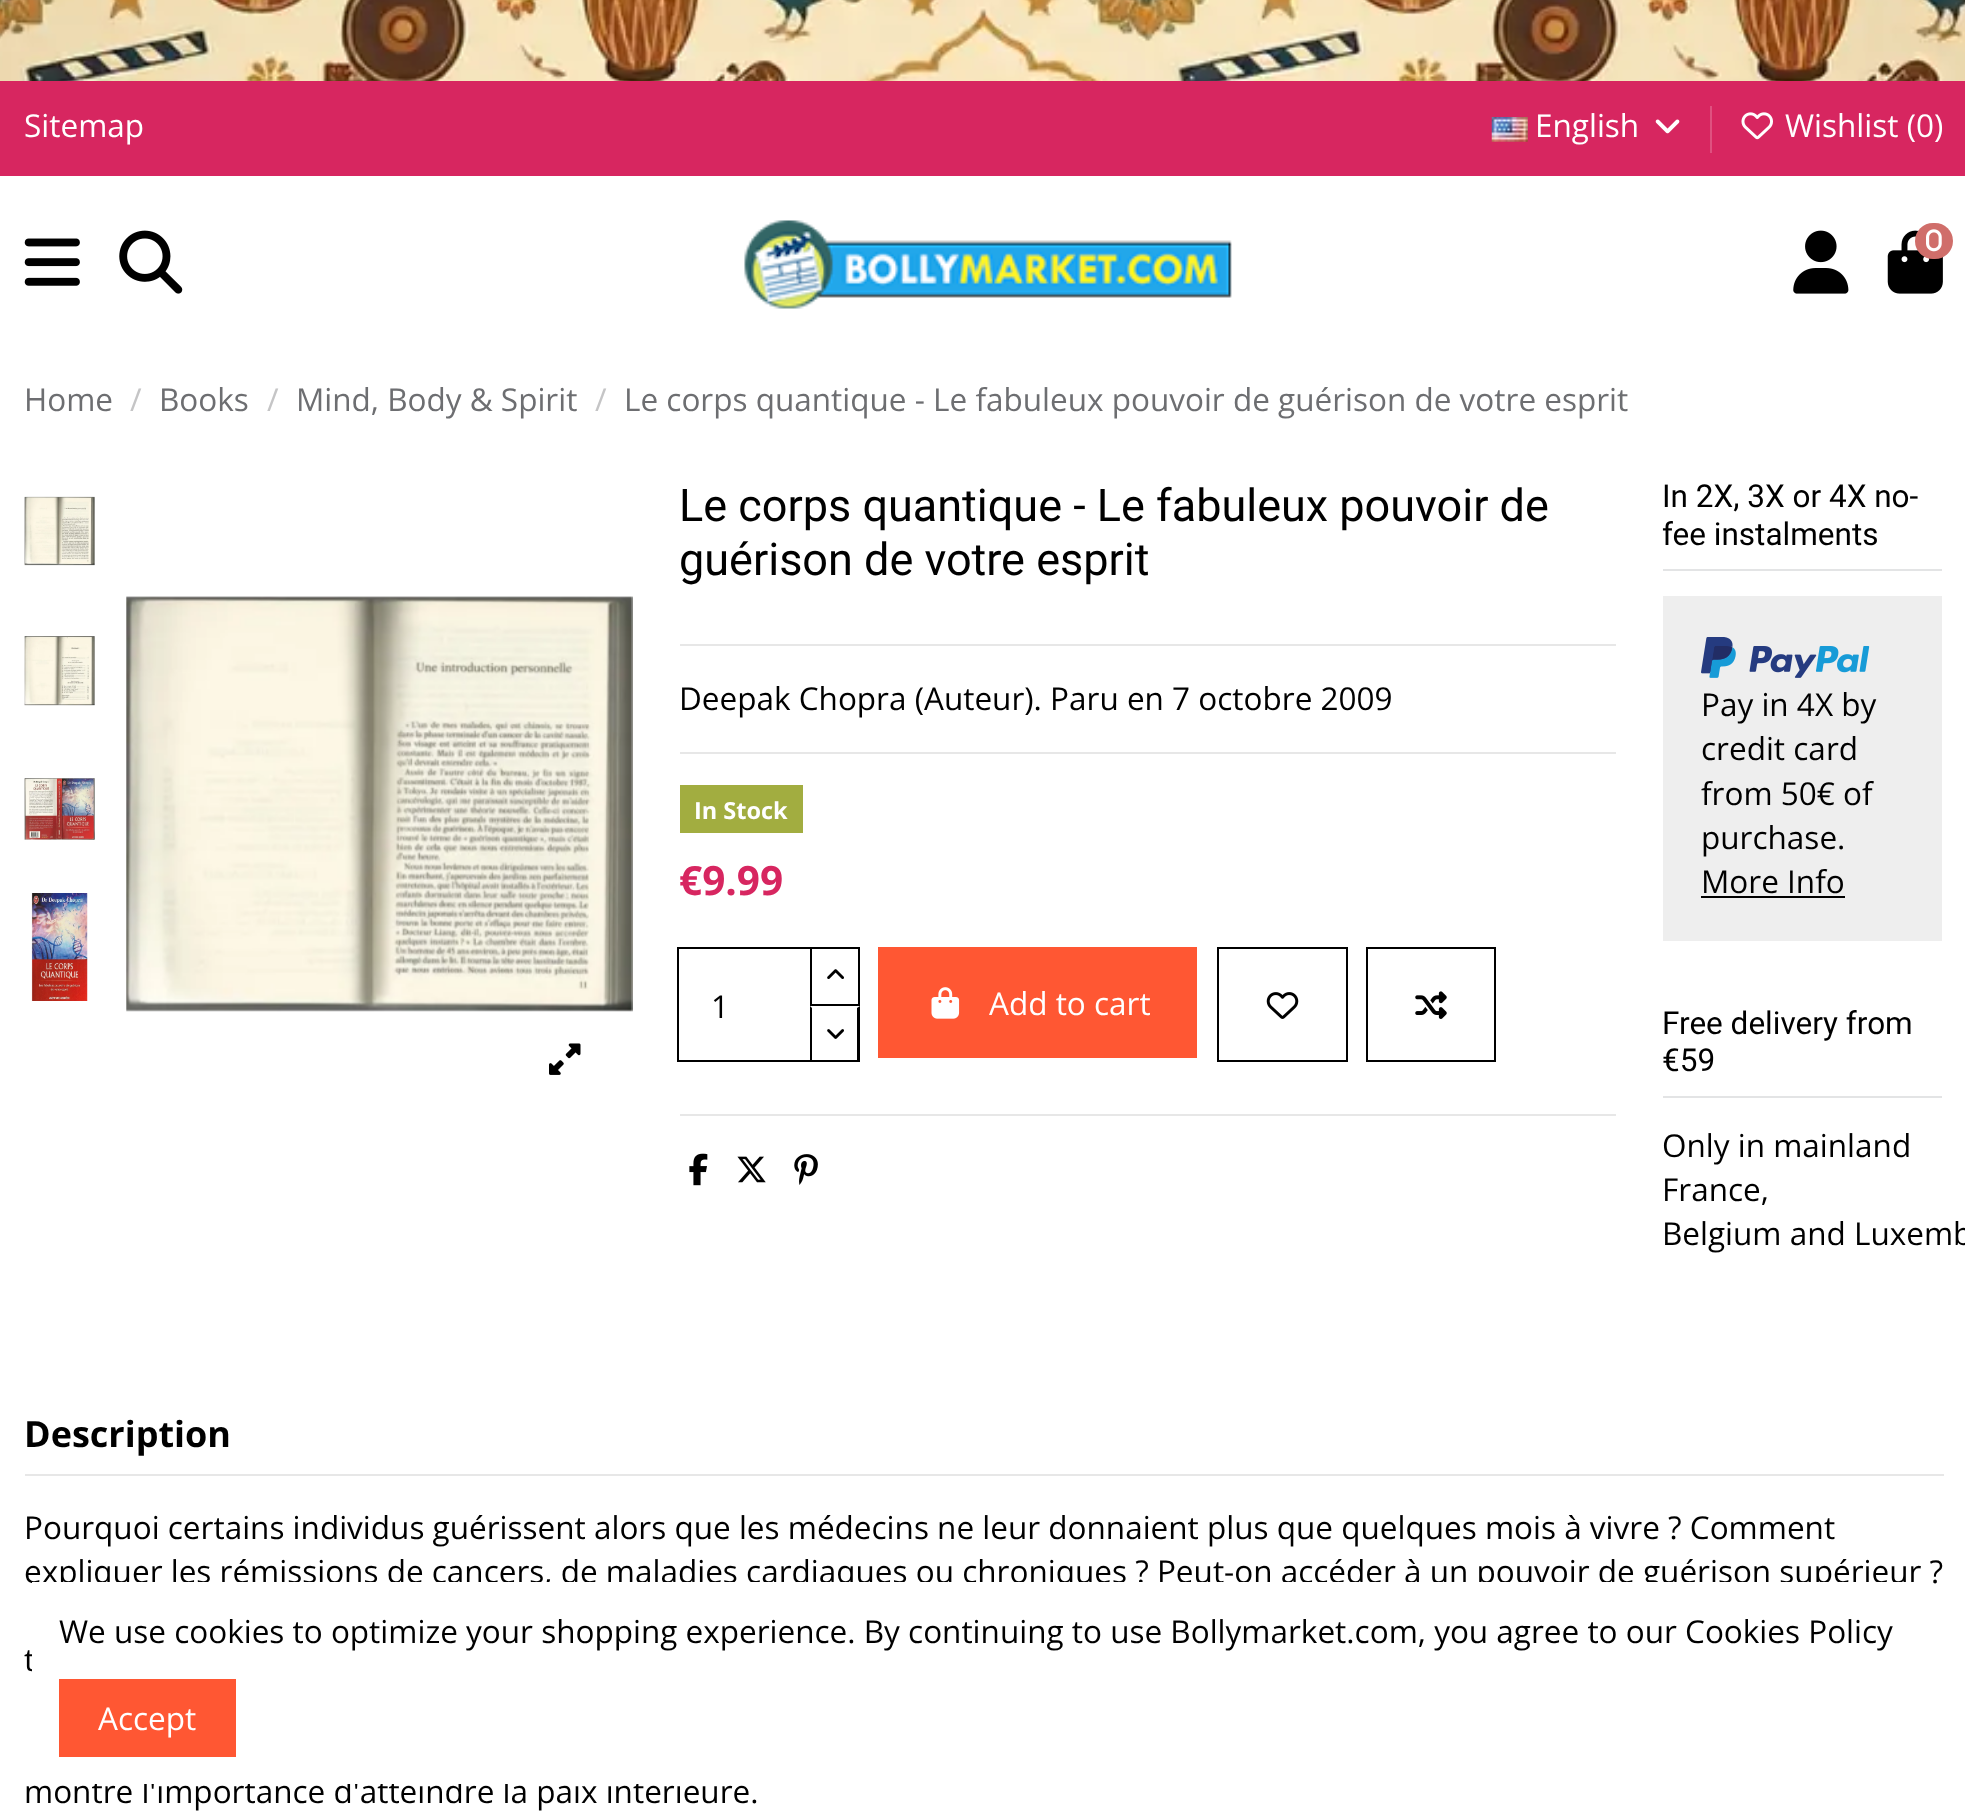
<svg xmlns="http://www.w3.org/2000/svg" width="1965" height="1815">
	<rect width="100%" height="100%" fill="#FFFFFF" />
	<image x="0" y="0" width="1965" height="81" href="assets/img1.png" />
	<rect x="0" y="81" width="1965" height="95" fill="#D72660" />
	<text x="24" y="137" font-family="Open Sans" font-size="31.5" fill="#FFFFFF">Sitemap</text>
	<image x="1491" y="117" width="37" height="25" href="assets/img2.png" />
	<text x="1535" y="137" font-family="Open Sans" font-size="31.5" fill="#FFFFFF">English</text>
	<image x="1655" y="119" width="25" height="15" href="assets/img3.png" />
	<rect x="1710" y="106" width="2" height="47" fill="#DF5180" />
	<image x="1741" y="112" width="32" height="28" href="assets/img4.png" />
	<text x="1785" y="137" font-family="Open Sans" font-size="31.5" fill="#FFFFFF">Wishlist (0)</text>
	<image x="24" y="238" width="56" height="48" href="assets/img5.png" />
	<image x="119" y="230" width="64" height="64" href="assets/img6.png" />
	<image x="744" y="220" width="488" height="89" href="assets/img7.png" />
	<image x="1793" y="230" width="56" height="64" href="assets/img8.png" />
	<image x="1887" y="230" width="56" height="64" href="assets/img10.png" />
	<rect x="1915" y="223" width="38" height="36" rx="18" fill="#D06E6A" />
	<image x="1926" y="229" width="16" height="23" href="assets/img9.png" />
	<text x="24" y="411" font-family="Open Sans" font-size="31.5" fill="#6D6E71">Home</text>
	<text x="130" y="411" font-family="Open Sans" font-size="31.5" fill="#C5C5C6">/</text>
	<text x="159" y="411" font-family="Open Sans" font-size="31.5" fill="#6D6E71">Books</text>
	<text x="267" y="411" font-family="Open Sans" font-size="31.5" fill="#C5C5C6">/</text>
	<text x="296" y="411" font-family="Open Sans" font-size="31.5" fill="#6D6E71">Mind, Body &amp; Spirit</text>
	<text x="595" y="411" font-family="Open Sans" font-size="31.5" fill="#C5C5C6">/</text>
	<text x="624" y="411" font-family="Open Sans" font-size="31.5" fill="#6D6E71">Le corps quantique - Le fabuleux pouvoir de guérison de votre esprit</text>
	<image x="24" y="496" width="71" height="70" href="assets/img11.png" />
	<image x="24" y="636" width="71" height="70" href="assets/img12.png" />
	<image x="24" y="778" width="71" height="62" href="assets/img13.png" />
	<image x="31" y="893" width="57" height="108" href="assets/img14.png" />
	<image x="126" y="596" width="507" height="416" href="assets/img15.png" />
	<image x="549" y="1043" width="32" height="32" href="assets/img16.png" />
	<rect x="680" y="644" width="936" height="2" fill="#E7E7E7" />
	<g font-family="Roboto" font-size="45" fill="#000000">
		<text x="679" y="521">Le corps quantique - Le fabuleux pouvoir de</text>
		<text x="679" y="575">guérison de votre esprit</text>
	</g>
	<text x="679" y="710" font-family="Open Sans" font-size="31.5" fill="#000000">Deepak Chopra (Auteur). Paru en 7 octobre 2009</text>
	<rect x="680" y="752" width="936" height="2" fill="#E7E7E7" />
	<rect x="680" y="785" width="123" height="48" fill="#A2AD40" />
	<text x="694" y="819" font-family="Open Sans" font-size="23.5" font-weight="700" fill="#FFFFFF">In Stock</text>
	<text x="679" y="895" font-family="Open Sans" font-size="40.5" font-weight="700" fill="#D72660">€9.99</text>
	<rect x="678" y="948" width="136" height="113" fill="none" stroke="#000000" stroke-width="2" />
	<text x="711" y="1018" font-family="Open Sans" font-size="31.5" fill="#000000">1</text>
	<rect x="813" y="949" width="2" height="55" fill="#FFFFFF" />
	<rect x="811" y="948" width="48" height="57" fill="none" stroke="#000000" stroke-width="2" />
	<image x="827" y="969" width="17" height="10" href="assets/img17.png" />
	<rect x="813" y="1006" width="2" height="54" fill="#FFFFFF" />
	<path d="M860 1006V1062L857 1060V1008Z" fill="#000000" />
	<rect x="810" y="1060" width="50" height="2" fill="#000000" />
	<path d="M810 1062V1006L812 1008V1060Z" fill="#000000" />
	<image x="827" y="1029" width="17" height="10" href="assets/img18.png" />
	<rect x="878" y="947" width="319" height="111" fill="#FF5733" />
	<image x="931" y="987" width="29" height="32" href="assets/img19.png" />
	<text x="989" y="1015" font-family="Open Sans" font-size="31.5" fill="#FFFFFF">Add to cart</text>
	<rect x="1218" y="948" width="129" height="113" fill="none" stroke="#000000" stroke-width="2" />
	<image x="1266" y="992" width="33" height="27" href="assets/img20.png" />
	<rect x="1367" y="948" width="128" height="113" fill="none" stroke="#000000" stroke-width="2" />
	<image x="1415" y="991" width="32" height="28" href="assets/img21.png" />
	<rect x="680" y="1114" width="936" height="2" fill="#E7E7E7" />
	<image x="689" y="1153" width="19" height="33" href="assets/img22.png" />
	<image x="737" y="1156" width="29" height="27" href="assets/img23.png" />
	<image x="794" y="1154" width="24" height="31" href="assets/img24.png" />
	<rect x="1663" y="569" width="279" height="2" fill="#E3E4E5" />
	<g font-family="Roboto" font-size="31.5" fill="#000000">
		<text x="1662" y="507">In 2X, 3X or 4X no-</text>
		<text x="1662" y="545">fee instalments</text>
	</g>
	<rect x="1663" y="596" width="279" height="345" fill="#EEEEEE" />
	<image x="1701" y="637" width="169" height="41" href="assets/img25.png" />
	<g font-family="Open Sans" font-size="31.5" fill="#000000">
		<text x="1701" y="716">Pay in 4X by</text>
		<text x="1701" y="760">credit card</text>
		<text x="1701" y="805">from 50€ of</text>
		<text x="1701" y="849">purchase.</text>
		<text x="1701" y="893">More Info</text>
	</g>
	<rect x="1701" y="896" width="144" height="2" fill="#000000" />
	<rect x="1663" y="1096" width="279" height="2" fill="#E3E4E5" />
	<g font-family="Roboto" font-size="31.5" fill="#000000">
		<text x="1662" y="1034">Free delivery from</text>
		<text x="1662" y="1071">€59</text>
	</g>
	<g font-family="Open Sans" font-size="31.5" fill="#000000">
		<text x="1662" y="1157">Only in mainland</text>
		<text x="1662" y="1201">France,</text>
		<text x="1662" y="1245">Belgium and Luxemb</text>
	</g>
	<rect x="25" y="1474" width="1919" height="2" fill="#E7E7E7" />
	<text x="24" y="1447" font-family="Open Sans" font-size="36" font-weight="700" fill="#000000">Description</text>
	<g font-family="Open Sans" font-size="31.5" fill="#000000">
		<text x="24" y="1539">Pourquoi certains individus guérissent alors que les médecins ne leur donnaient plus que quelques mois à vivre ? Comment</text>
		<text x="24" y="1583">expliquer les rémissions de cancers, de maladies cardiaques ou chroniques ? Peut-on accéder à un pouvoir de guérison supérieur ?</text>
		<text x="24" y="1671">t</text>
		<text x="24" y="1803">montre l'importance d'atteindre la paix intérieure.</text>
	</g>
	<rect x="32" y="1582" width="1882" height="202" fill="#FFFFFF" />
	<text x="59" y="1643" font-family="Open Sans" font-size="31.5" fill="#000000">We use cookies to optimize your shopping experience. By continuing to use Bollymarket.com, you agree to our Cookies Policy</text>
	<rect x="59" y="1679" width="177" height="78" fill="#FF5733" />
	<text x="98" y="1730" font-family="Open Sans" font-size="31.5" fill="#FFFFFF">Accept</text>
</svg>
